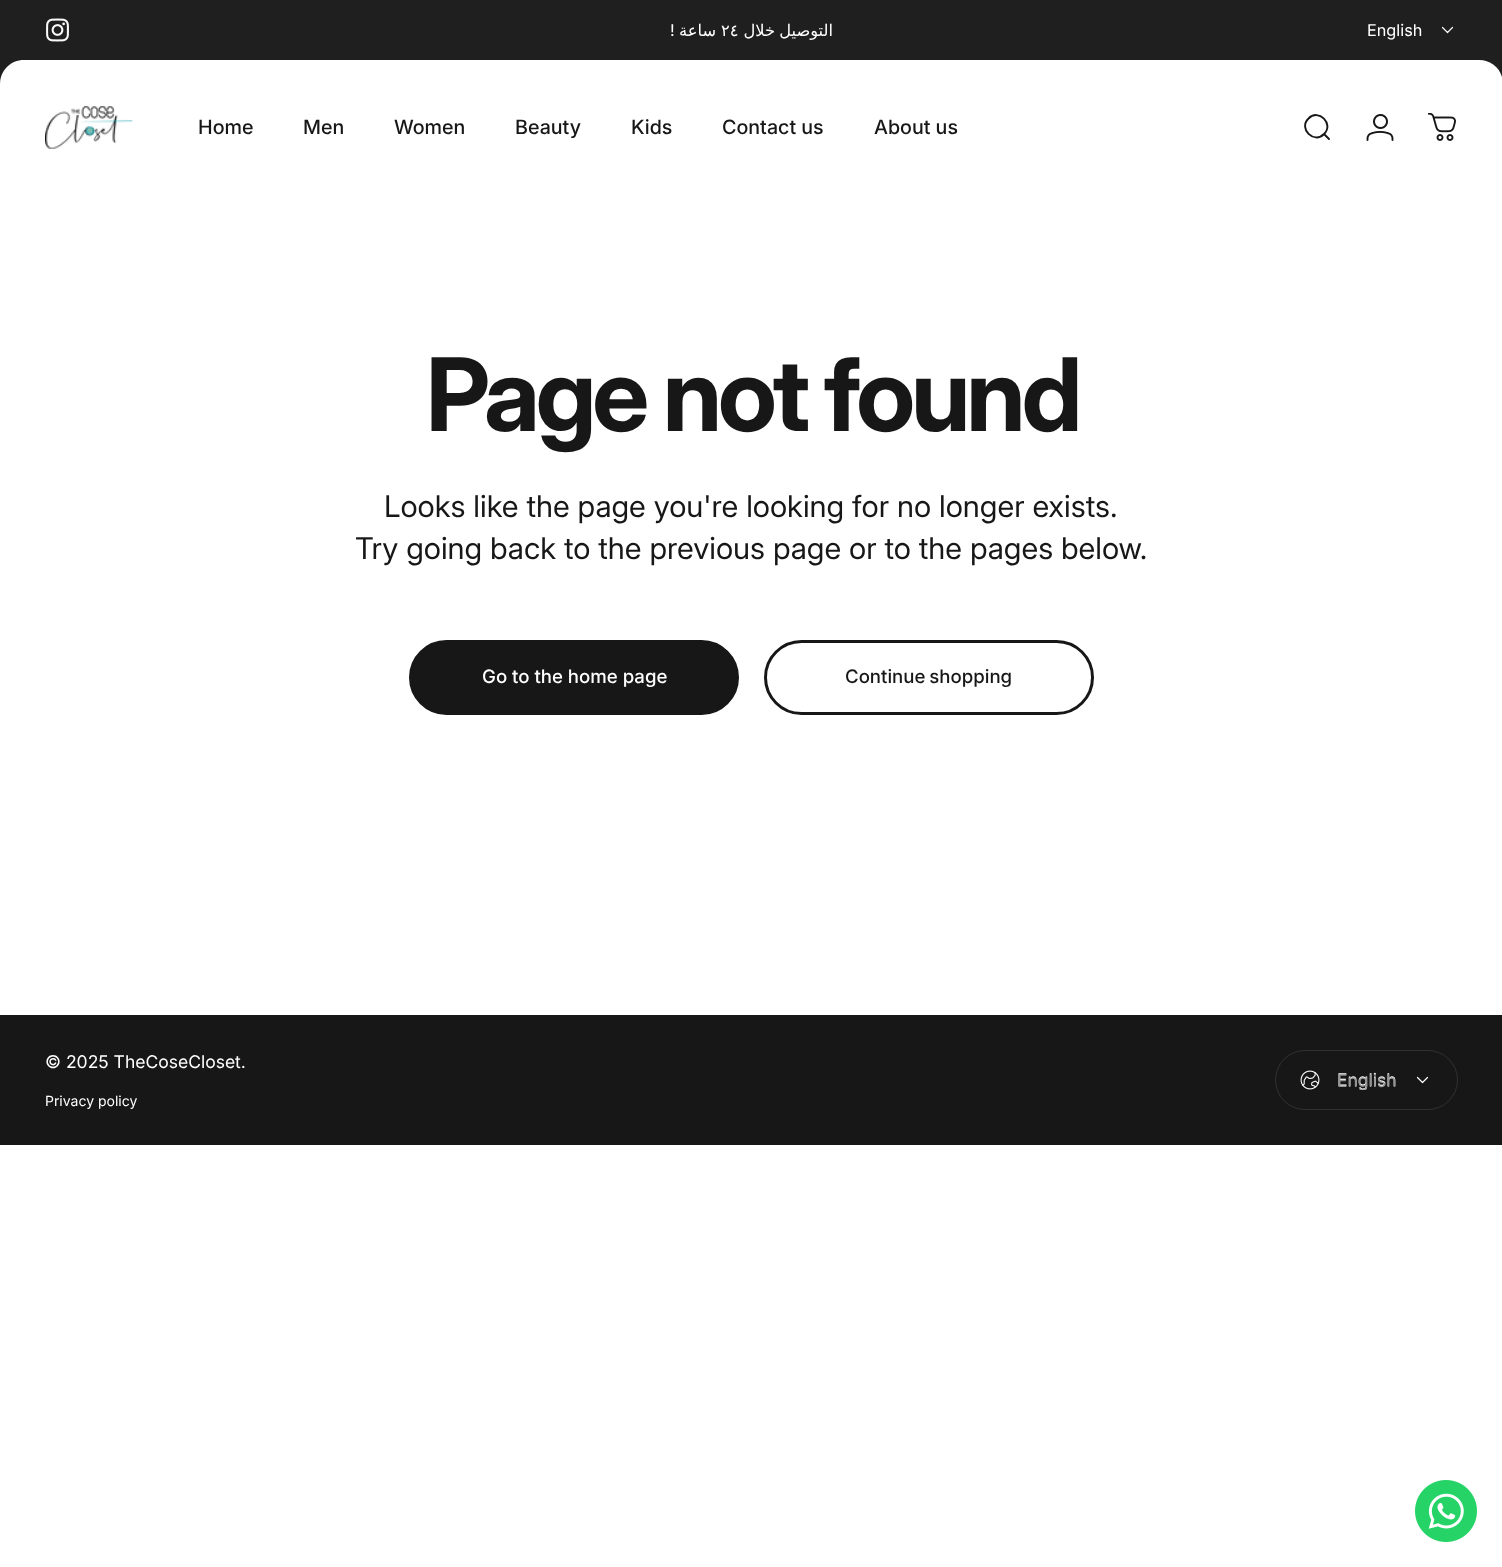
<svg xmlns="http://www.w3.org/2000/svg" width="1502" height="1567">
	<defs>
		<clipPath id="clip1"><rect x="1336" y="1069" width="60" height="21" /></clipPath>
	</defs>
	<rect width="100%" height="100%" fill="#FFFFFF" />
	<rect x="0" y="0" width="1502" height="24" fill="#1F1F1F" />
	<path d="M24 0H1479C1492.5 0 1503 10.5 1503 24V84H0V24C0 10.5 10.5 0 24 0Z" fill="#1F1F1F" />
	<image x="46" y="18" width="23" height="24" href="assets/img1.png" />
	<text x="670" y="36" font-family="Inter" font-size="16.25" fill="#FFFFFF">!</text>
	<text x="716" y="36" font-family="DejaVu Sans" font-size="16.25" direction="rtl" fill="#FFFFFF">ساعة</text>
	<text x="721" y="36" font-family="DejaVu Sans" font-size="16.25" fill="#FFFFFF">٢٤</text>
	<text x="833" y="36" word-spacing="-1" font-family="DejaVu Sans" font-size="16.25" direction="rtl" fill="#FFFFFF">التوصيل خلال</text>
	<text x="1367" y="36" font-family="Inter" font-size="16.25" fill="#FFFFFF">English</text>
	<path d="M1442.5 27.5L1447.5 32.5L1452.5 27.5" fill="none" stroke="#FAFAFA" stroke-width="1.2" stroke-linecap="round" stroke-linejoin="round" />
	<path d="M24 60H1479C1492.5 60 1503 70.5 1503 84V195H0V84C0 70.5 10.5 60 24 60Z" fill="#FFFFFF" />
	<image x="45" y="106" width="88" height="43" href="assets/img2.png" />
	<g font-family="'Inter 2'" font-size="19.75" font-weight="500" fill="#171717">
		<text x="198" y="134">Home</text>
		<text x="303" y="134">Men</text>
		<text x="394" y="134">Women</text>
		<text x="515" y="134">Beauty</text>
		<text x="631" y="134">Kids</text>
		<text x="722" y="134">Contact us</text>
		<text x="874" y="134">About us</text>
	</g>
	<path d="M1329 139L1324 134M1324 134C1334.5 124 1318.5 108 1308.5 118.5C1298 128.5 1314 144.5 1324 134Z" fill="none" stroke="#171717" stroke-width="1.9" stroke-linecap="round" />
	<image x="1366" y="114" width="28" height="27" href="assets/img3.png" />
	<image x="1428" y="113" width="28" height="28" href="assets/img4.png" />
	<text x="426" y="431" font-family="Inter" font-size="101.25" font-weight="700" letter-spacing="-4" fill="#171717">Page not found</text>
	<g font-family="'Inter 2'" font-size="30" fill="#171717">
		<text x="384" y="517">Looks like the page you're looking for no longer exists.</text>
		<text x="355" y="559">Try going back to the previous page or to the pages below.</text>
	</g>
	<rect x="410.5" y="641.5" width="327" height="72" rx="36" fill="#171717" stroke="#171717" stroke-width="3" />
	<text x="482" y="683" font-family="Inter" font-size="18.6" font-weight="500" fill="#FFFFFF">Go to the home page</text>
	<rect x="765.5" y="641.5" width="327" height="72" rx="36" fill="none" stroke="#171717" stroke-width="3" />
	<text x="845" y="683" word-spacing="-1" font-family="Inter" font-size="18.6" font-weight="500" fill="#171717">Continue shopping</text>
	<rect x="0" y="1015" width="1502" height="130" fill="#171717" />
	<text x="45" y="1068" font-family="Inter" font-size="17.5" fill="#FFFFFF">© 2025 TheCoseCloset.</text>
	<text x="45" y="1106" font-family="Inter" font-size="14" fill="#FFFFFF">Privacy policy</text>
	<rect x="1275.5" y="1050.5" width="182" height="59" rx="29.5" fill="none" stroke="#313131" />
	<image x="1300" y="1070" width="20" height="20" href="assets/img5.png" />
	<text x="1337" y="1086" font-family="Inter" font-size="17.5" fill="#FFFFFF">English</text>
	<g clip-path="url(#clip1)">
		<text x="1337" y="1087" font-family="Inter" font-size="17.5" fill="#949494">English</text>
	</g>
	<path d="M1417.5 1077.5L1422.5 1082.5L1427.5 1077.5" fill="none" stroke="#FFFFFF" stroke-width="1.2" stroke-linecap="round" stroke-linejoin="round" />
	<image x="1415" y="1480" width="62" height="62" href="assets/img6.png" />
</svg>
